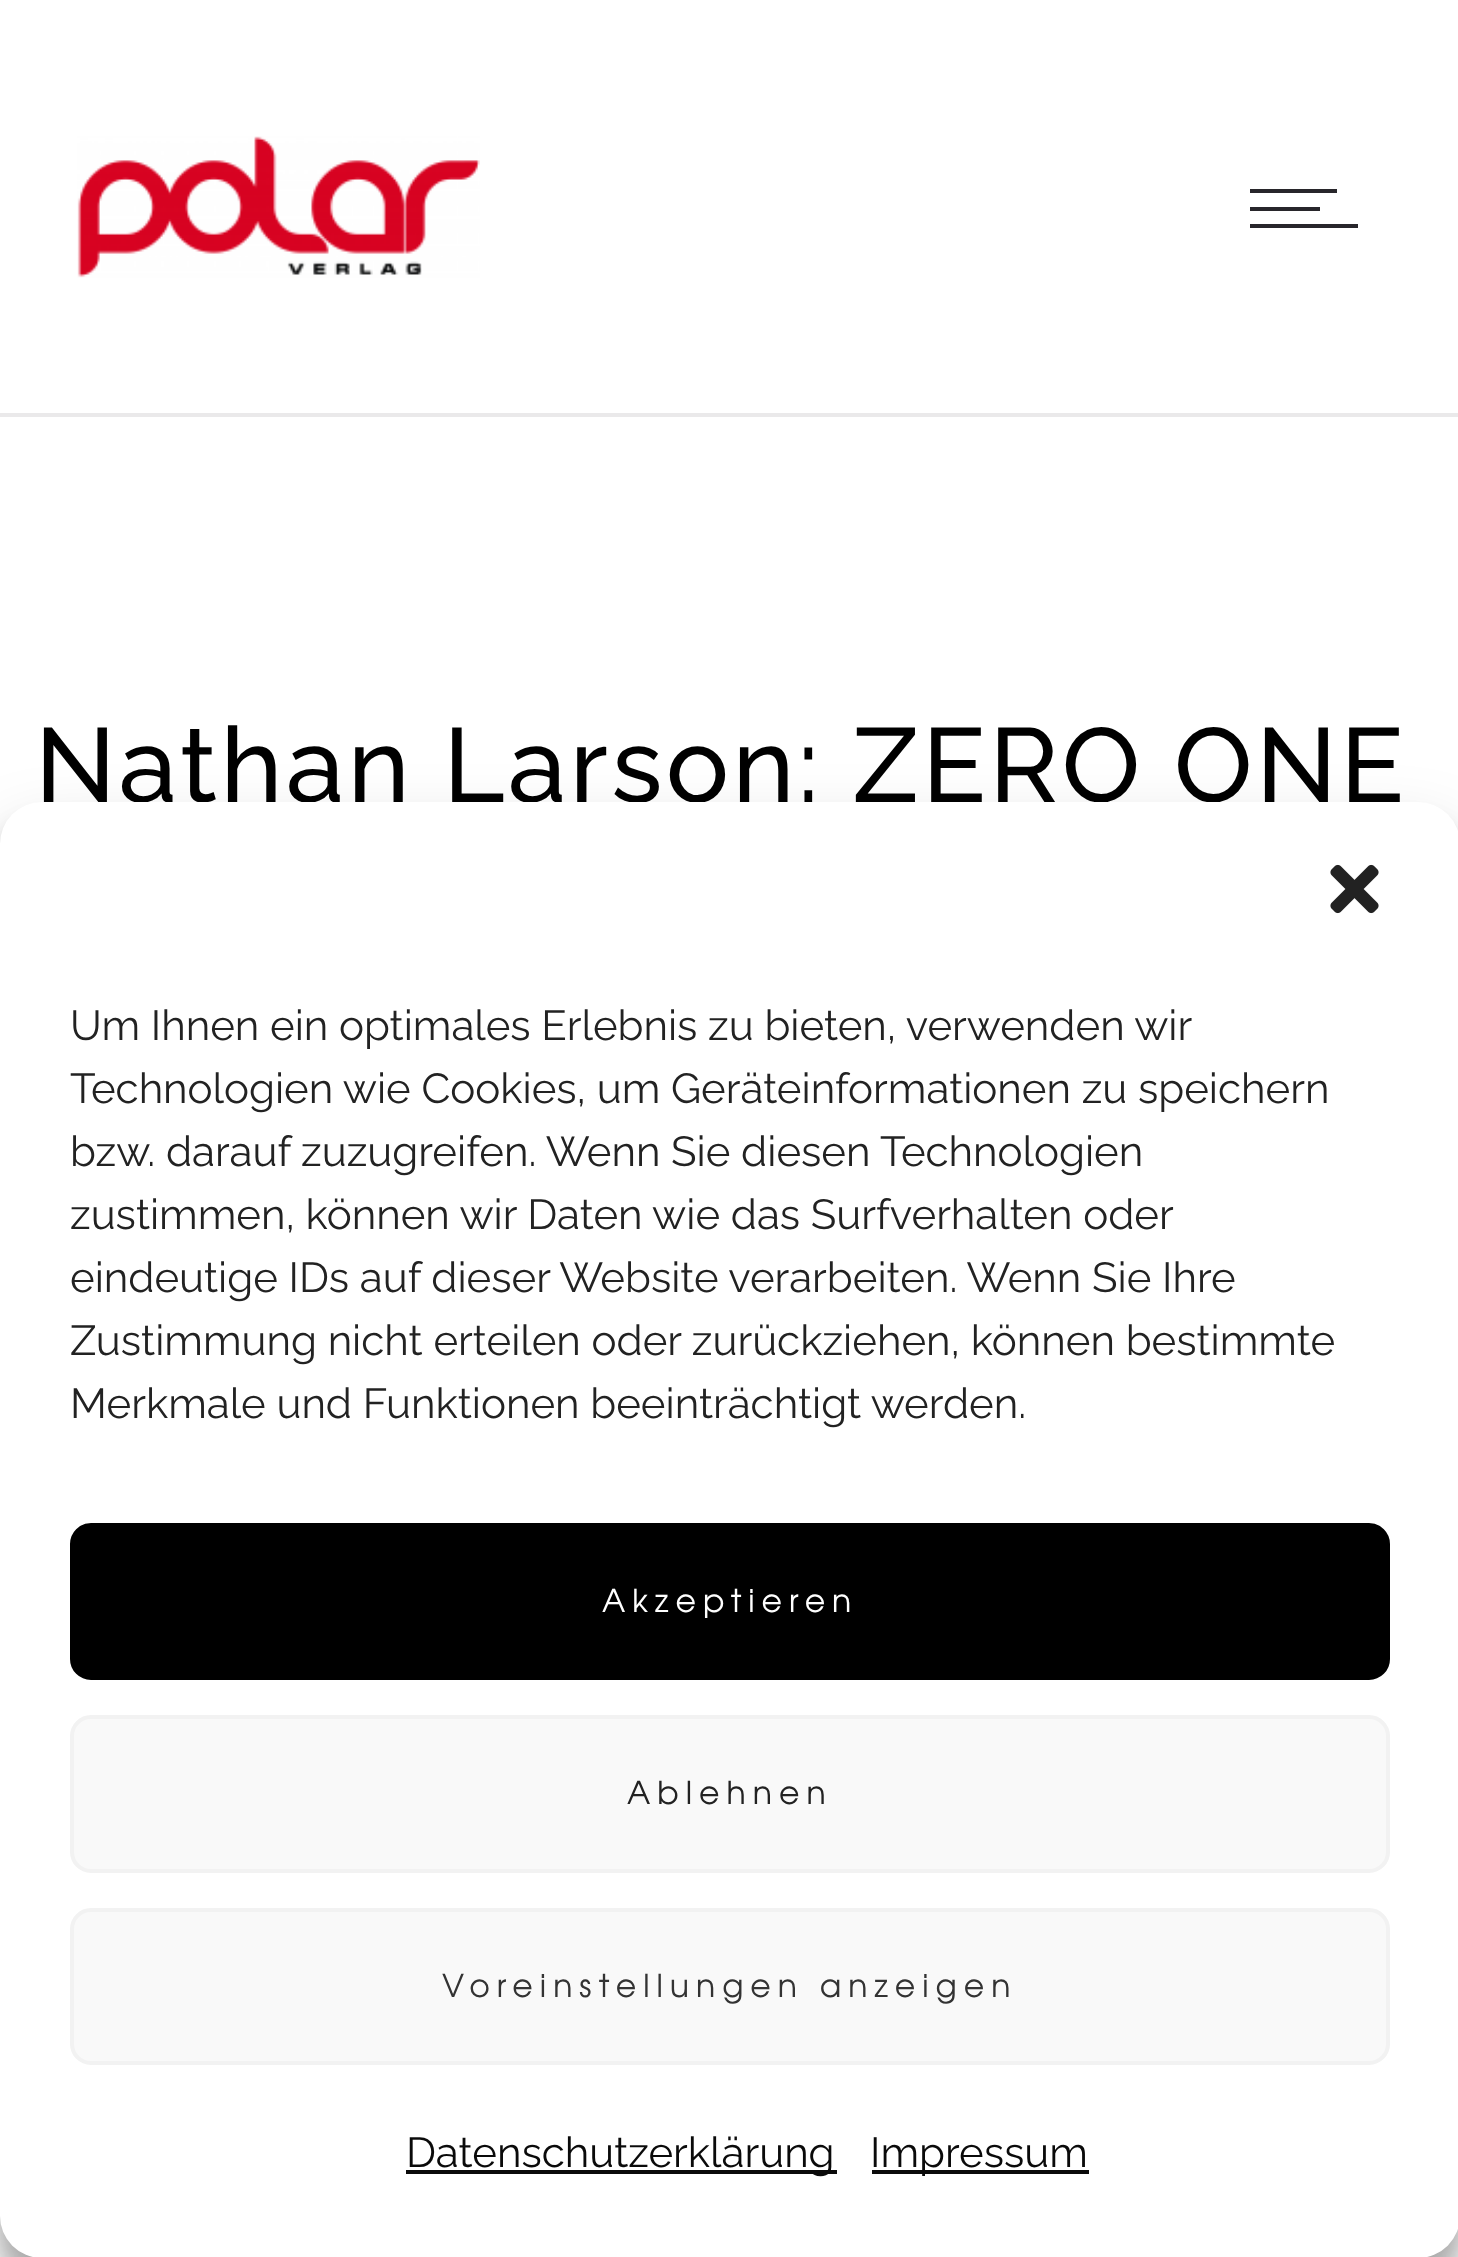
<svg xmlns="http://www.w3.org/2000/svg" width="1458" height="2257">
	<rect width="100%" height="100%" fill="#FFFFFF" />
	<rect x="0" y="413" width="1458" height="4" fill="#EAE9EA" />
	<image x="77" y="136" width="403" height="142" href="assets/img1.png" />
	<rect x="1250" y="189" width="87" height="4" fill="#28262B" />
	<rect x="1250" y="207" width="70" height="4" fill="#28262B" />
	<rect x="1250" y="224" width="108" height="4" fill="#28262B" />
	<text x="35" y="802" font-family="Raleway" font-size="105" font-weight="500" letter-spacing="3.5" fill="#000000">Nathan Larson: ZERO ONE</text>
	<rect x="0" y="823" width="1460" height="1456" rx="42" fill="#000000" fill-opacity="0.23" filter="blur(10.5px)" />
	<rect x="0" y="837" width="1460" height="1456" rx="42" fill="#000000" fill-opacity="0.19" filter="blur(35px)" />
	<rect x="0" y="802" width="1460" height="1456" rx="42" fill="#FFFFFF" />
	<image x="1330" y="864" width="49" height="50" href="assets/img2.png" />
	<g font-family="Raleway" font-size="42" fill="#222222">
		<text x="70" y="1040">Um Ihnen ein optimales Erlebnis zu bieten, verwenden wir</text>
		<text x="70" y="1103">Technologien wie Cookies, um Geräteinformationen zu speichern</text>
		<text x="70" y="1166">bzw. darauf zuzugreifen. Wenn Sie diesen Technologien</text>
		<text x="70" y="1229">zustimmen, können wir Daten wie das Surfverhalten oder</text>
		<text x="70" y="1292">eindeutige IDs auf dieser Website verarbeiten. Wenn Sie Ihre</text>
		<text x="70" y="1355">Zustimmung nicht erteilen oder zurückziehen, können bestimmte</text>
		<text x="70" y="1418">Merkmale und Funktionen beeinträchtigt werden.</text>
	</g>
	<rect x="72" y="1525" width="1316" height="153" rx="19" fill="#000000" stroke="#000000" stroke-width="4" />
	<text x="602" y="1612" font-family="TeX Gyre Adventor" font-size="31.5" letter-spacing="7" fill="#FFFFFF">Akzeptieren</text>
	<rect x="72" y="1717" width="1316" height="154" rx="19" fill="#F9F9F9" stroke="#F2F2F2" stroke-width="4" />
	<text x="627" y="1804" font-family="TeX Gyre Adventor" font-size="31.5" letter-spacing="7" fill="#222222">Ablehnen</text>
	<rect x="72" y="1910" width="1316" height="153" rx="19" fill="#F9F9F9" stroke="#F2F2F2" stroke-width="4" />
	<text x="442" y="1997" font-family="TeX Gyre Adventor" font-size="31.5" letter-spacing="7" fill="#333333">Voreinstellungen anzeigen</text>
	<rect x="406" y="2170" width="431" height="4" fill="#0A0A0A" />
	<text x="406" y="2167" font-family="Raleway" font-size="42" fill="#0A0A0A">Datenschutzerklärung</text>
	<rect x="872" y="2170" width="217" height="4" fill="#0A0A0A" />
	<text x="870" y="2167" font-family="Raleway" font-size="42" fill="#0A0A0A">Impressum</text>
</svg>
